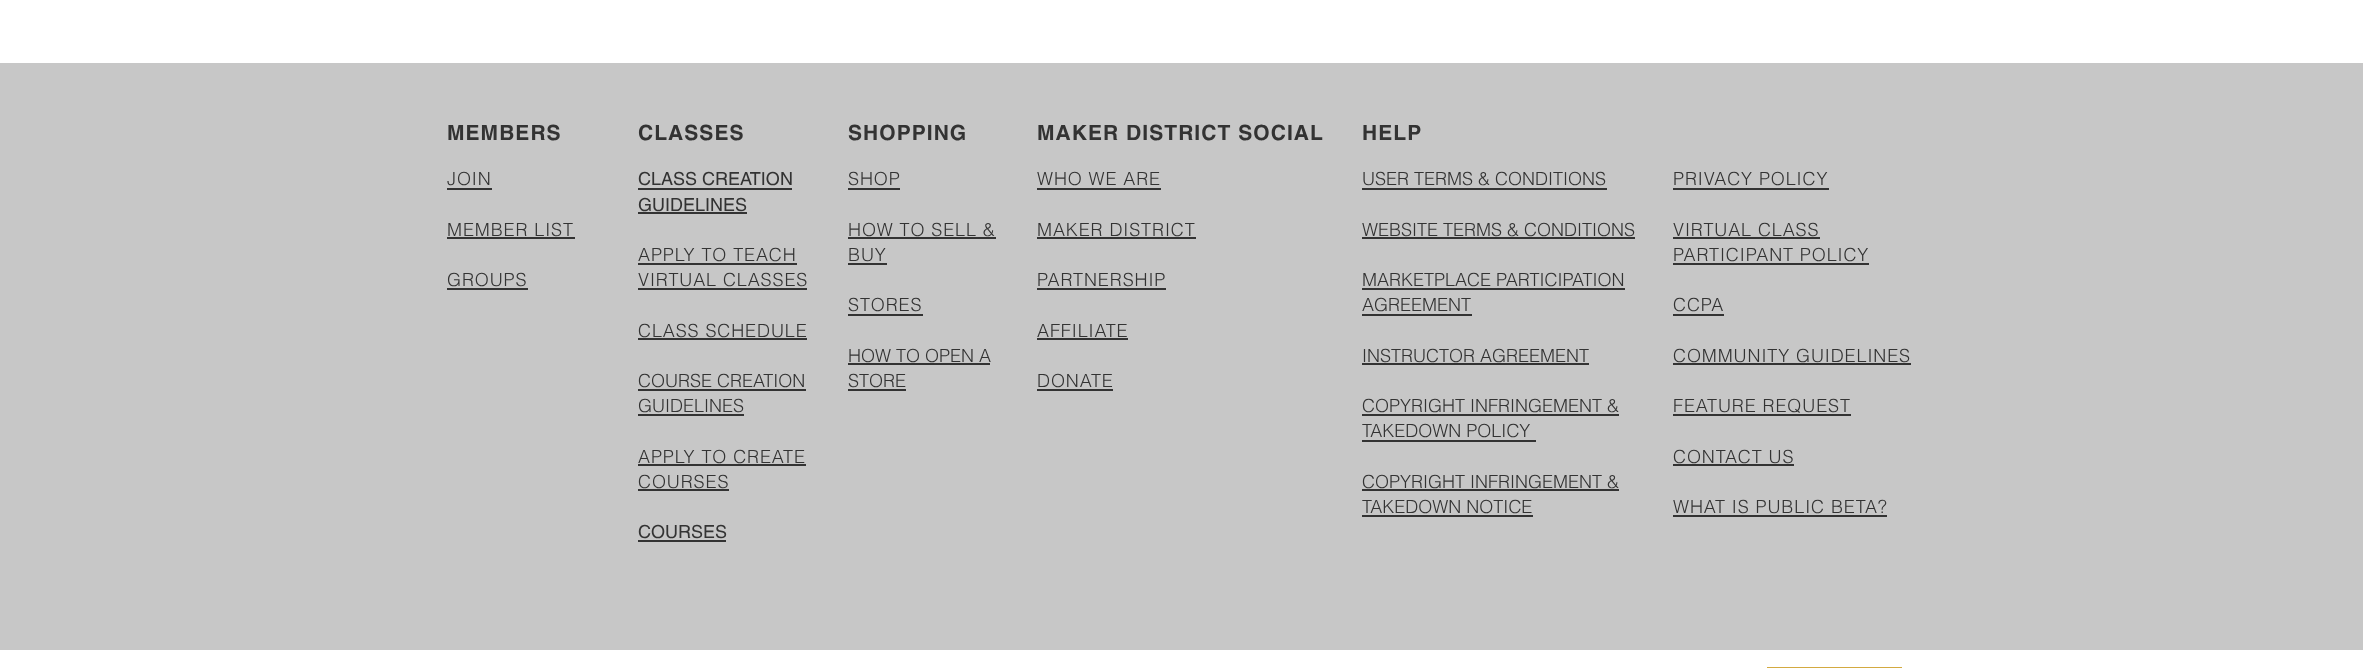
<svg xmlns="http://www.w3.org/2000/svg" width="2363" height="668">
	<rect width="100%" height="100%" fill="#FFFFFF" />
	<rect x="0" y="63" width="2363" height="587" fill="#C7C7C7" />
	<g font-family="helvetica" font-size="21" font-weight="700" letter-spacing="1.05" fill="#333333">
		<text x="447" y="140">MEMBERS</text>
		<text x="638" y="140">CLASSES</text>
		<text x="848" y="140">SHOPPING</text>
		<text x="1037" y="140">MAKER DISTRICT SOCIAL</text>
		<text x="1362" y="140">HELP</text>
	</g>
	<text x="447" y="185" font-family="helvetica" font-size="18" font-weight="300" letter-spacing="0.9" fill="#333333">JOIN</text>
	<rect x="447" y="188" width="45" height="2" fill="#333333" />
	<text x="447" y="236" font-family="helvetica" font-size="18" font-weight="300" letter-spacing="0.9" fill="#333333">MEMBER LIST</text>
	<rect x="447" y="237" width="128" height="2" fill="#333333" />
	<text x="447" y="286" font-family="helvetica" font-size="18" font-weight="300" letter-spacing="0.9" fill="#333333">GROUPS</text>
	<rect x="447" y="288" width="81" height="2" fill="#333333" />
	<text x="638" y="185" font-family="helvetica" font-size="18" fill="#333333">CLASS CREATION</text>
	<rect x="638" y="188" width="154" height="2" fill="#333333" />
	<text x="638" y="211" font-family="helvetica" font-size="18" fill="#333333">GUIDELINES</text>
	<rect x="638" y="212" width="109" height="2" fill="#333333" />
	<text x="638" y="261" font-family="helvetica" font-size="18" font-weight="300" letter-spacing="0.9" fill="#333333">APPLY TO TEACH</text>
	<rect x="638" y="263" width="159" height="2" fill="#333333" />
	<text x="638" y="286" font-family="helvetica" font-size="18" font-weight="300" letter-spacing="0.9" fill="#333333">VIRTUAL CLASSES</text>
	<rect x="638" y="288" width="169" height="2" fill="#333333" />
	<text x="638" y="337" font-family="helvetica" font-size="18" font-weight="300" letter-spacing="0.9" fill="#333333">CLASS SCHEDULE</text>
	<rect x="638" y="338" width="169" height="2" fill="#333333" />
	<text x="638" y="387" font-family="helvetica" font-size="18" font-weight="300" fill="#333333">COURSE CREATION</text>
	<rect x="638" y="389" width="168" height="2" fill="#333333" />
	<text x="638" y="412" font-family="helvetica" font-size="18" font-weight="300" fill="#333333">GUIDELINES</text>
	<rect x="638" y="414" width="106" height="2" fill="#333333" />
	<text x="638" y="463" font-family="helvetica" font-size="18" font-weight="300" letter-spacing="0.9" fill="#333333">APPLY TO CREATE</text>
	<rect x="638" y="464" width="168" height="2" fill="#333333" />
	<text x="638" y="488" font-family="helvetica" font-size="18" font-weight="300" letter-spacing="0.9" fill="#333333">COURSES</text>
	<rect x="638" y="489" width="91" height="2" fill="#333333" />
	<text x="638" y="538" font-family="helvetica" font-size="18" fill="#333333">COURSES</text>
	<rect x="638" y="540" width="88" height="2" fill="#333333" />
	<text x="848" y="185" font-family="helvetica" font-size="18" font-weight="300" letter-spacing="0.9" fill="#333333">SHOP</text>
	<rect x="848" y="188" width="52" height="2" fill="#333333" />
	<text x="848" y="236" font-family="helvetica" font-size="18" font-weight="300" letter-spacing="0.9" fill="#333333">HOW TO SELL &amp;</text>
	<rect x="848" y="237" width="148" height="2" fill="#333333" />
	<text x="848" y="261" font-family="helvetica" font-size="18" font-weight="300" letter-spacing="0.9" fill="#333333">BUY</text>
	<rect x="848" y="263" width="39" height="2" fill="#333333" />
	<text x="848" y="311" font-family="helvetica" font-size="18" font-weight="300" letter-spacing="0.9" fill="#333333">STORES</text>
	<rect x="848" y="314" width="75" height="2" fill="#333333" />
	<text x="848" y="362" font-family="helvetica" font-size="18" font-weight="300" fill="#333333">HOW TO OPEN A</text>
	<rect x="848" y="363" width="142" height="2" fill="#333333" />
	<text x="848" y="387" font-family="helvetica" font-size="18" font-weight="300" fill="#333333">STORE</text>
	<rect x="848" y="389" width="58" height="2" fill="#333333" />
	<text x="1037" y="185" font-family="helvetica" font-size="18" font-weight="300" letter-spacing="0.9" fill="#333333">WHO WE ARE</text>
	<rect x="1037" y="188" width="124" height="2" fill="#333333" />
	<text x="1037" y="236" font-family="helvetica" font-size="18" font-weight="300" letter-spacing="0.9" fill="#333333">MAKER DISTRICT</text>
	<rect x="1037" y="237" width="159" height="2" fill="#333333" />
	<text x="1037" y="286" font-family="helvetica" font-size="18" font-weight="300" letter-spacing="0.9" fill="#333333">PARTNERSHIP</text>
	<rect x="1037" y="288" width="129" height="2" fill="#333333" />
	<text x="1037" y="337" font-family="helvetica" font-size="18" font-weight="300" letter-spacing="0.9" fill="#333333">AFFILIATE</text>
	<rect x="1037" y="338" width="91" height="2" fill="#333333" />
	<text x="1037" y="387" font-family="helvetica" font-size="18" font-weight="300" letter-spacing="0.9" fill="#333333">DONATE</text>
	<rect x="1037" y="389" width="76" height="2" fill="#333333" />
	<text x="1362" y="185" font-family="helvetica" font-size="18" font-weight="300" fill="#333333">USER TERMS &amp; CONDITIONS</text>
	<rect x="1362" y="188" width="245" height="2" fill="#333333" />
	<text x="1362" y="236" font-family="helvetica" font-size="18" font-weight="300" fill="#333333">WEBSITE TERMS &amp; CONDITIONS</text>
	<rect x="1362" y="237" width="273" height="2" fill="#333333" />
	<text x="1362" y="286" font-family="helvetica" font-size="18" font-weight="300" fill="#333333">MARKETPLACE PARTICIPATION</text>
	<rect x="1362" y="288" width="263" height="2" fill="#333333" />
	<text x="1362" y="311" font-family="helvetica" font-size="18" font-weight="300" fill="#333333">AGREEMENT</text>
	<rect x="1362" y="314" width="110" height="2" fill="#333333" />
	<text x="1362" y="362" font-family="helvetica" font-size="18" font-weight="300" fill="#333333">INSTRUCTOR AGREEMENT</text>
	<rect x="1362" y="363" width="227" height="2" fill="#333333" />
	<text x="1362" y="412" font-family="helvetica" font-size="18" font-weight="300" fill="#333333">COPYRIGHT INFRINGEMENT &amp;</text>
	<rect x="1362" y="414" width="257" height="2" fill="#333333" />
	<text x="1362" y="437" font-family="helvetica" font-size="18" font-weight="300" fill="#333333">TAKEDOWN POLICY</text>
	<rect x="1362" y="440" width="174" height="2" fill="#333333" />
	<text x="1362" y="488" font-family="helvetica" font-size="18" font-weight="300" fill="#333333">COPYRIGHT INFRINGEMENT &amp;</text>
	<rect x="1362" y="489" width="257" height="2" fill="#333333" />
	<text x="1362" y="513" font-family="helvetica" font-size="18" font-weight="300" fill="#333333">TAKEDOWN NOTICE</text>
	<rect x="1362" y="515" width="171" height="2" fill="#333333" />
	<text x="1673" y="185" font-family="helvetica" font-size="18" font-weight="300" letter-spacing="0.9" fill="#333333">PRIVACY POLICY</text>
	<rect x="1673" y="188" width="156" height="2" fill="#333333" />
	<text x="1673" y="236" font-family="helvetica" font-size="18" font-weight="300" letter-spacing="0.9" fill="#333333">VIRTUAL CLASS</text>
	<rect x="1673" y="237" width="147" height="2" fill="#333333" />
	<text x="1673" y="261" font-family="helvetica" font-size="18" font-weight="300" letter-spacing="0.9" fill="#333333">PARTICIPANT POLICY</text>
	<rect x="1673" y="263" width="196" height="2" fill="#333333" />
	<text x="1673" y="311" font-family="helvetica" font-size="18" font-weight="300" letter-spacing="0.9" fill="#333333">CCPA</text>
	<rect x="1673" y="314" width="51" height="2" fill="#333333" />
	<text x="1673" y="362" font-family="helvetica" font-size="18" font-weight="300" letter-spacing="0.9" fill="#333333">COMMUNITY GUIDELINES</text>
	<rect x="1673" y="363" width="238" height="2" fill="#333333" />
	<text x="1673" y="412" font-family="helvetica" font-size="18" font-weight="300" letter-spacing="0.9" fill="#333333">FEATURE REQUEST</text>
	<rect x="1673" y="414" width="178" height="2" fill="#333333" />
	<text x="1673" y="463" font-family="helvetica" font-size="18" font-weight="300" letter-spacing="0.9" fill="#333333">CONTACT US</text>
	<rect x="1673" y="464" width="121" height="2" fill="#333333" />
	<text x="1673" y="513" font-family="helvetica" font-size="18" font-weight="300" letter-spacing="0.9" fill="#333333">WHAT IS PUBLIC BETA?</text>
	<rect x="1673" y="515" width="214" height="2" fill="#333333" />
	<rect x="1767" y="667" width="135" height="1" fill="#D3AA41" />
</svg>
